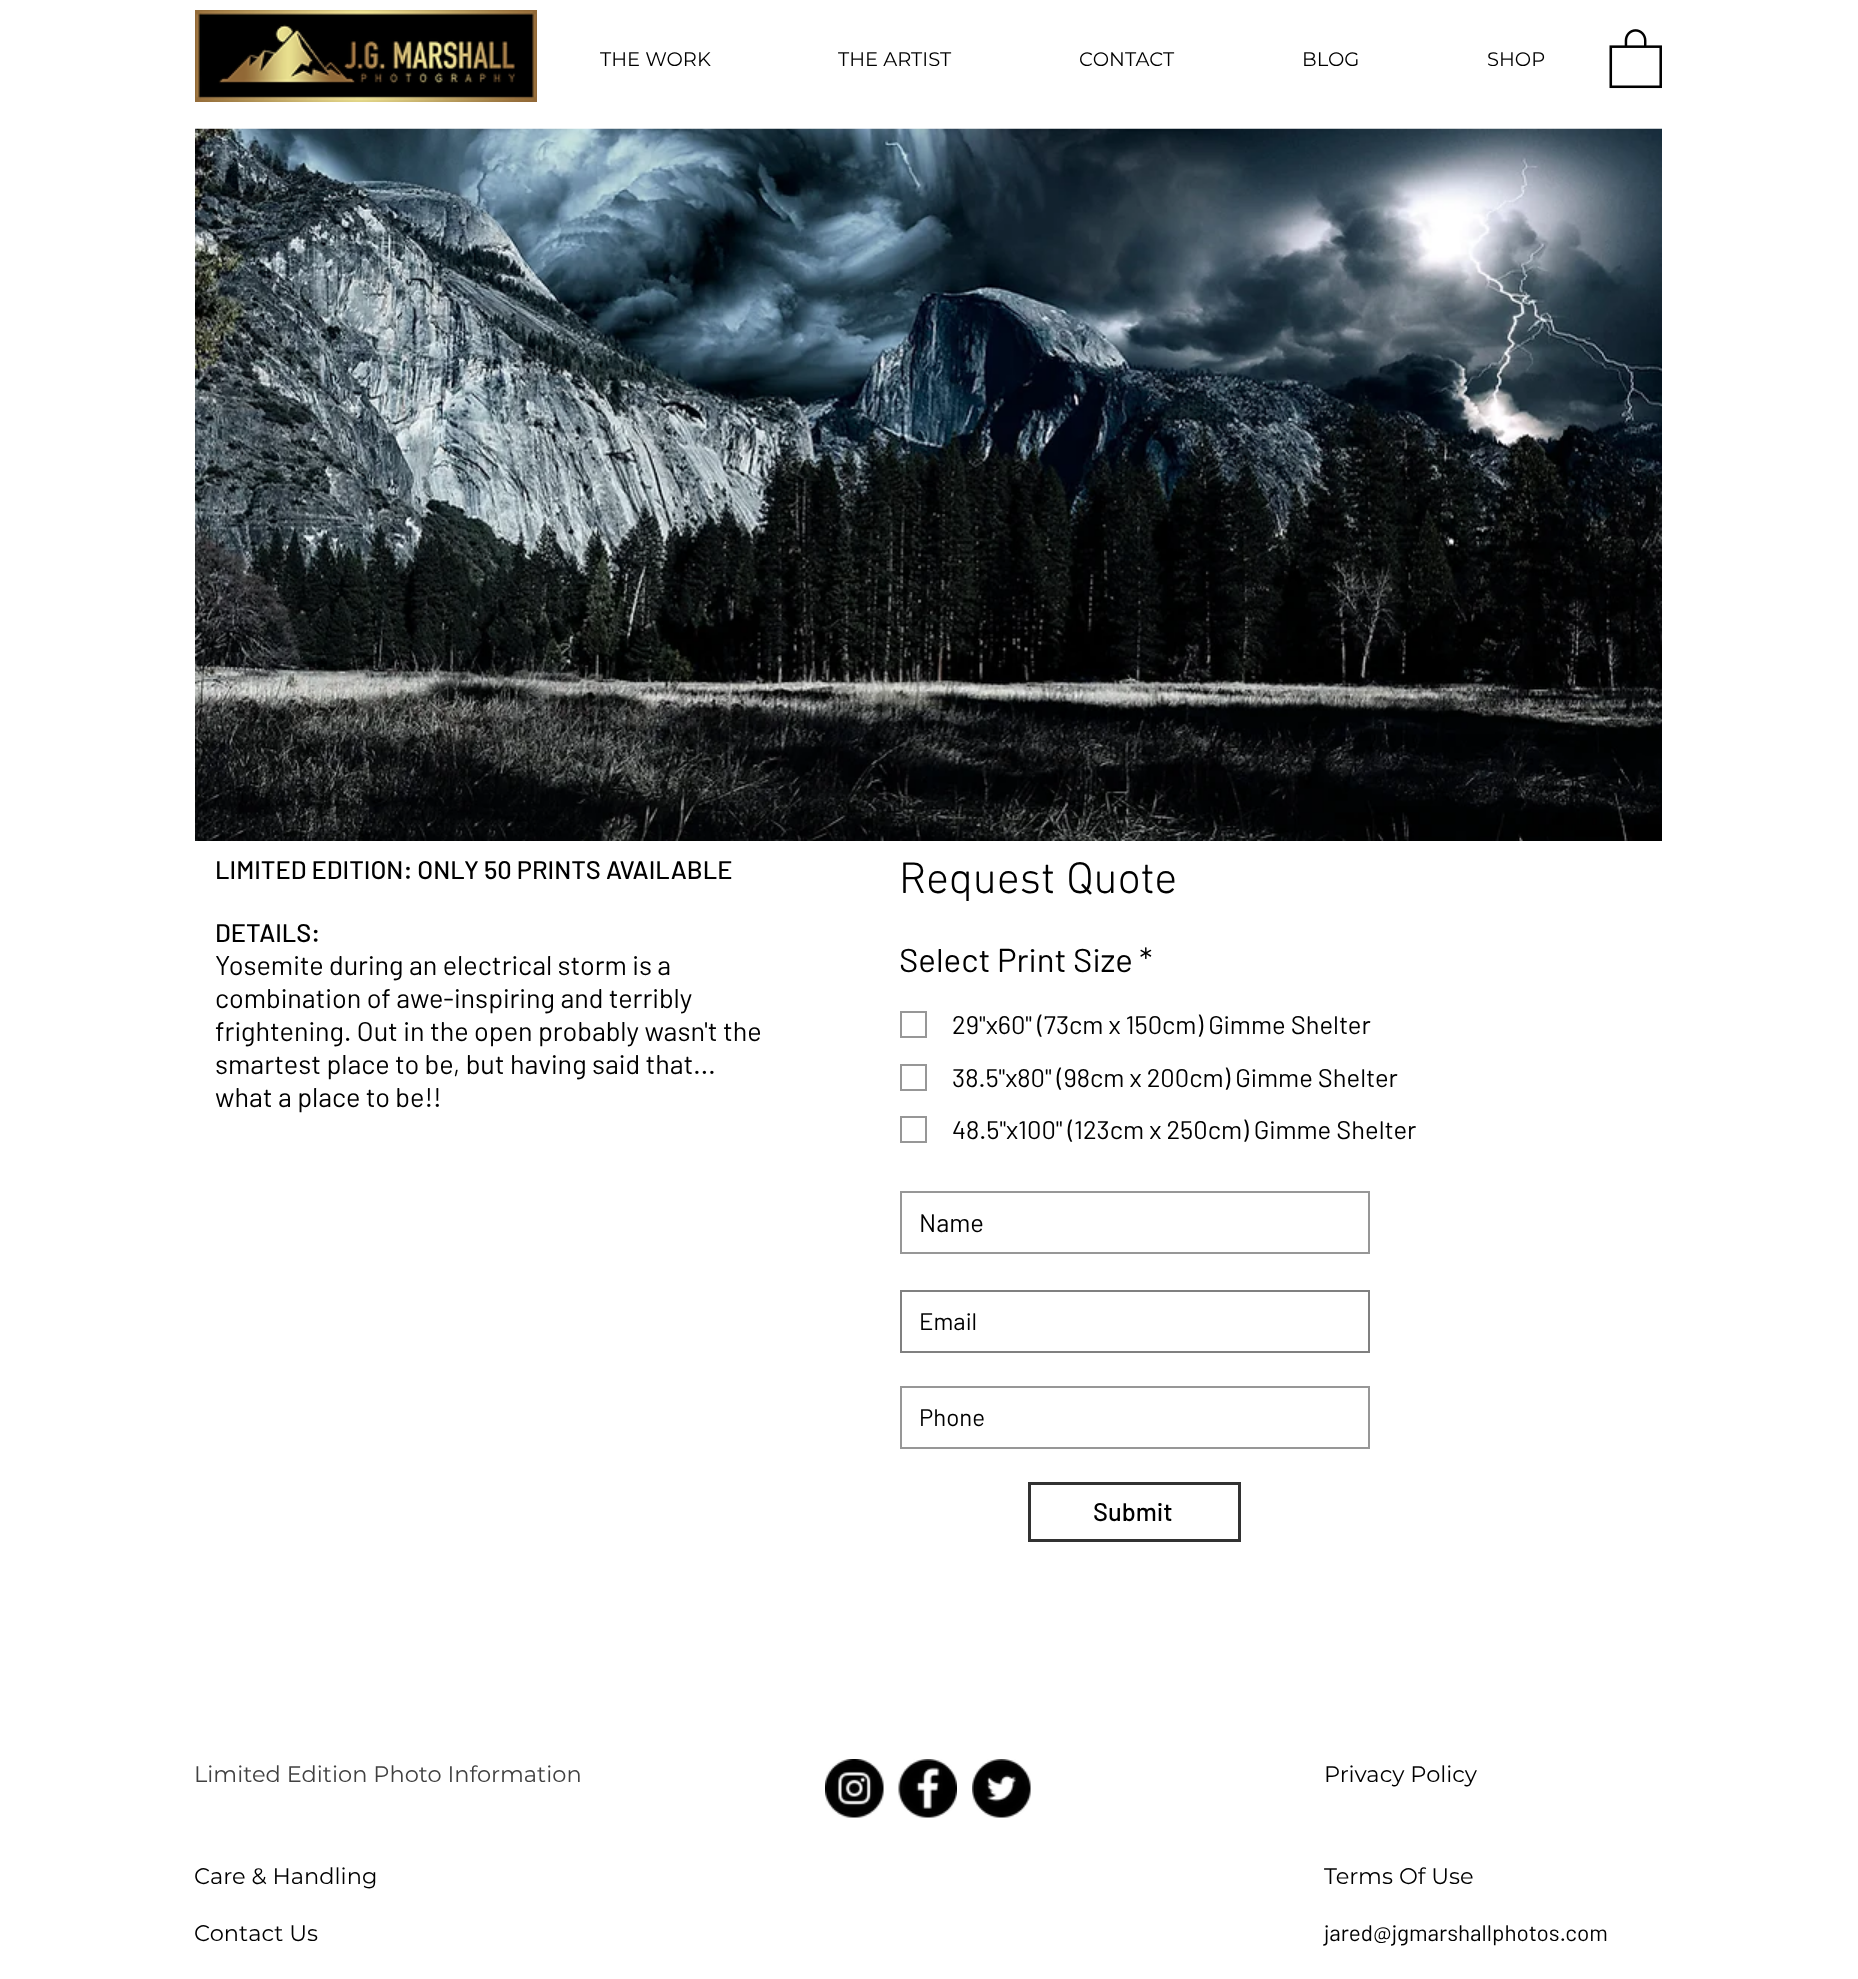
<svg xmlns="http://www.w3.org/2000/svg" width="1858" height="1979">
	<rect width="100%" height="100%" fill="#FFFFFF" />
	<image x="195" y="10" width="342" height="92" href="assets/img1.png" />
	<g font-family="Montserrat" font-size="19.5" fill="#000000">
		<text x="600" y="66">THE WORK</text>
		<text x="838" y="66">THE ARTIST</text>
		<text x="1079" y="66">CONTACT</text>
		<text x="1302" y="66">BLOG</text>
		<text x="1487" y="66">SHOP</text>
	</g>
	<image x="1609" y="29" width="53" height="60" href="assets/img2.png" />
	<image x="195" y="128" width="1467" height="713" href="assets/img3.png" />
	<g font-family="Barlow" font-size="25.5" font-weight="500" fill="#000000">
		<text x="215" y="879">LIMITED EDITION: ONLY 50 PRINTS AVAILABLE</text>
		<text x="215" y="942">DETAILS:</text>
	</g>
	<g font-family="Barlow" font-size="27" fill="#000000">
		<text x="215" y="975">Yosemite during an electrical storm is a</text>
		<text x="215" y="1008">combination of awe-inspiring and terribly</text>
		<text x="215" y="1041">frightening. Out in the open probably wasn't the</text>
		<text x="215" y="1074">smartest place to be, but having said that...</text>
		<text x="215" y="1107">what a place to be!!</text>
	</g>
	<text x="899" y="893" font-family="'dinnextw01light'" font-size="45" font-weight="300" fill="#000000">Request Quote</text>
	<text x="899" y="972" font-family="Barlow" font-size="33" fill="#000000">Select Print Size *</text>
	<rect x="901" y="1012" width="25" height="25" fill="none" stroke="#979797" stroke-width="2" />
	<text x="952" y="1034" font-family="Barlow" font-size="25.5" fill="#000000">29"x60" (73cm x 150cm) Gimme Shelter</text>
	<rect x="901" y="1065" width="25" height="25" fill="none" stroke="#979797" stroke-width="2" />
	<text x="952" y="1087" font-family="Barlow" font-size="25.5" fill="#000000">38.5"x80" (98cm x 200cm) Gimme Shelter</text>
	<rect x="901" y="1117" width="25" height="25" fill="none" stroke="#979797" stroke-width="2" />
	<text x="952" y="1139" font-family="Barlow" font-size="25.5" fill="#000000">48.5"x100" (123cm x 250cm) Gimme Shelter</text>
	<rect x="901" y="1192" width="468" height="61" fill="none" stroke="#979797" stroke-width="2" />
	<text x="919" y="1232" font-family="Barlow" font-size="25.5" fill="#000000">Name</text>
	<rect x="901" y="1291" width="468" height="61" fill="none" stroke="#808080" stroke-width="2" />
	<text x="919" y="1330" font-family="Barlow" font-size="24" fill="#000000">Email</text>
	<rect x="901" y="1387" width="468" height="61" fill="none" stroke="#979797" stroke-width="2" />
	<text x="919" y="1426" font-family="Barlow" font-size="24" fill="#000000">Phone</text>
	<rect x="1029.5" y="1483.5" width="210" height="57" fill="none" stroke="#323232" stroke-width="3" />
	<text x="1093" y="1521" font-family="Barlow" font-size="25.5" font-weight="500" fill="#000000">Submit</text>
	<text x="194" y="1782" font-family="Montserrat" font-size="22.5" fill="#414141">Limited Edition Photo Information</text>
	<image x="825" y="1759" width="59" height="59" href="assets/img4.png" />
	<image x="898" y="1759" width="59" height="59" href="assets/img5.png" />
	<image x="972" y="1759" width="59" height="59" href="assets/img6.png" />
	<g font-family="Montserrat" font-size="22.5" fill="#000000">
		<text x="1324" y="1782">Privacy Policy</text>
		<text x="194" y="1884">Care &amp; Handling</text>
		<text x="1324" y="1884">Terms Of Use</text>
		<text x="194" y="1941">Contact Us</text>
	</g>
	<text x="1324" y="1941" font-family="Barlow" font-size="22.5" fill="#000000">jared@jgmarshallphotos.com</text>
</svg>
